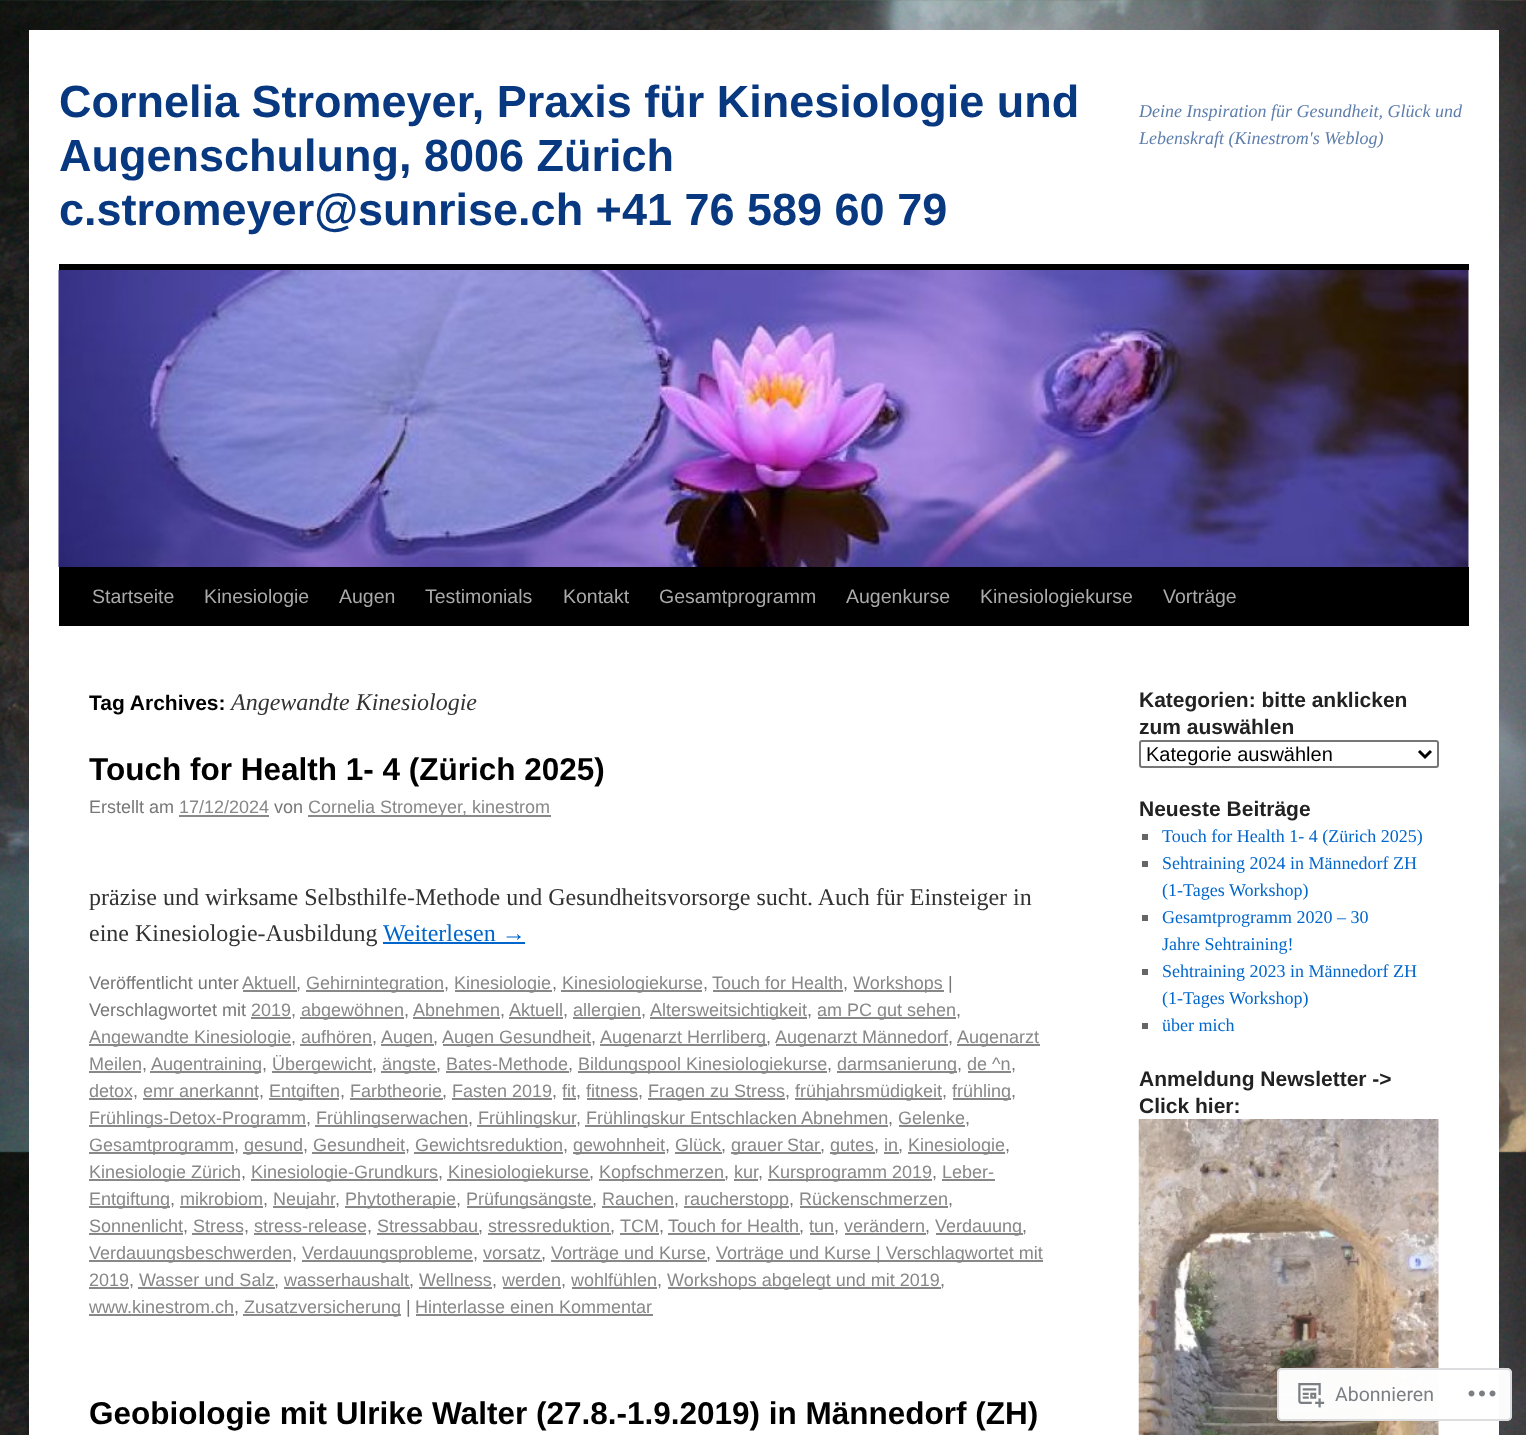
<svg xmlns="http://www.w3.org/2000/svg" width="1526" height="1435">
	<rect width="100%" height="100%" fill="#FFFFFF" />
	<image x="0" y="0" width="1526" height="1435" href="assets/img1.png" />
	<rect x="29" y="30" width="1470" height="1405" fill="#FFFFFF" />
	<g font-family="Liberation Sans" font-size="45" font-weight="700" fill="#083980">
		<text x="59" y="117">Cornelia Stromeyer, Praxis für Kinesiologie und</text>
		<text x="59" y="171">Augenschulung, 8006 Zürich</text>
		<text x="59" y="225">c.stromeyer@sunrise.ch +41 76 589 60 79</text>
	</g>
	<g font-family="Liberation Serif" font-size="18" font-style="italic" fill="#5E7EAC">
		<text x="1139" y="117">Deine Inspiration für Gesundheit, Glück und</text>
		<text x="1139" y="144">Lebenskraft (Kinestrom's Weblog)</text>
	</g>
	<rect x="59" y="264" width="1410" height="6" fill="#000000" />
	<rect x="59" y="567" width="1410" height="59" fill="#000000" />
	<image x="58" y="270" width="1411" height="297" href="assets/img2.png" />
	<g font-family="Liberation Sans" font-size="19.5" fill="#AAAAAA">
		<text x="92" y="603">Startseite</text>
		<text x="204" y="603">Kinesiologie</text>
		<text x="339" y="603">Augen</text>
		<text x="425" y="603">Testimonials</text>
		<text x="563" y="603">Kontakt</text>
		<text x="659" y="603">Gesamtprogramm</text>
		<text x="846" y="603">Augenkurse</text>
		<text x="980" y="603">Kinesiologiekurse</text>
		<text x="1163" y="603">Vorträge</text>
	</g>
	<text x="89" y="710" font-family="Liberation Sans" font-size="21" font-weight="700" fill="#000000">Tag Archives:</text>
	<text x="231" y="710" font-family="Liberation Serif" font-size="24" font-style="italic" fill="#333333">Angewandte Kinesiologie</text>
	<text x="89" y="780" font-family="Liberation Sans" font-size="31.5" font-weight="700" fill="#000000">Touch for Health 1- 4 (Zürich 2025)</text>
	<text x="89" y="813" font-family="Liberation Sans" font-size="18" fill="#777777">Erstellt am</text>
	<text x="179" y="813" font-family="Liberation Sans" font-size="18" fill="#888888">17/12/2024</text>
	<rect x="179" y="815" width="90" height="2" fill="#888888" />
	<text x="274" y="813" font-family="Liberation Sans" font-size="18" fill="#777777">von</text>
	<rect x="308" y="815" width="243" height="2" fill="#888888" />
	<text x="308" y="813" font-family="Liberation Sans" font-size="18" fill="#888888">Cornelia Stromeyer, kinestrom</text>
	<g font-family="Liberation Serif" font-size="24" fill="#333333">
		<text x="89" y="905">präzise und wirksame Selbsthilfe-Methode und Gesundheitsvorsorge sucht. Auch für Einsteiger in</text>
		<text x="89" y="941">eine Kinesiologie-Ausbildung</text>
	</g>
	<text x="383" y="941" font-family="Liberation Serif" font-size="24" fill="#0066CC">Weiterlesen →</text>
	<rect x="383" y="942" width="142" height="2" fill="#0066CC" />
	<text x="89" y="989" font-family="Liberation Sans" font-size="18" fill="#777777">Veröffentlicht unter</text>
	<text x="242" y="989" font-family="Liberation Sans" font-size="18" fill="#888888">Aktuell</text>
	<text x="296" y="989" font-family="Liberation Sans" font-size="18" fill="#777777">,</text>
	<rect x="243" y="990" width="54" height="2" fill="#888888" />
	<rect x="306" y="990" width="138" height="2" fill="#888888" />
	<text x="306" y="989" font-family="Liberation Sans" font-size="18" fill="#888888">Gehirnintegration</text>
	<text x="444" y="989" font-family="Liberation Sans" font-size="18" fill="#777777">,</text>
	<rect x="455" y="990" width="97" height="2" fill="#888888" />
	<text x="454" y="989" font-family="Liberation Sans" font-size="18" fill="#888888">Kinesiologie</text>
	<text x="552" y="989" font-family="Liberation Sans" font-size="18" fill="#777777">,</text>
	<rect x="561" y="990" width="141" height="2" fill="#888888" />
	<text x="562" y="989" font-family="Liberation Sans" font-size="18" fill="#888888">Kinesiologiekurse</text>
	<text x="703" y="989" font-family="Liberation Sans" font-size="18" fill="#777777">,</text>
	<text x="712" y="989" font-family="Liberation Sans" font-size="18" fill="#888888">Touch for Health</text>
	<text x="843" y="989" font-family="Liberation Sans" font-size="18" fill="#777777">,</text>
	<rect x="713" y="990" width="130" height="2" fill="#888888" />
	<rect x="854" y="990" width="90" height="2" fill="#888888" />
	<text x="853" y="989" font-family="Liberation Sans" font-size="18" fill="#888888">Workshops</text>
	<g font-family="Liberation Sans" font-size="18" fill="#777777">
		<text x="948" y="989">|</text>
		<text x="89" y="1016">Verschlagwortet mit</text>
	</g>
	<text x="251" y="1016" font-family="Liberation Sans" font-size="18" fill="#888888">2019</text>
	<text x="291" y="1016" font-family="Liberation Sans" font-size="18" fill="#777777">,</text>
	<rect x="251" y="1017" width="40" height="2" fill="#888888" />
	<rect x="300" y="1017" width="104" height="2" fill="#888888" />
	<text x="301" y="1016" font-family="Liberation Sans" font-size="18" fill="#888888">abgewöhnen</text>
	<text x="404" y="1016" font-family="Liberation Sans" font-size="18" fill="#777777">,</text>
	<text x="413" y="1016" font-family="Liberation Sans" font-size="18" fill="#888888">Abnehmen</text>
	<text x="500" y="1016" font-family="Liberation Sans" font-size="18" fill="#777777">,</text>
	<rect x="413" y="1017" width="87" height="2" fill="#888888" />
	<text x="509" y="1016" font-family="Liberation Sans" font-size="18" fill="#888888">Aktuell</text>
	<text x="563" y="1016" font-family="Liberation Sans" font-size="18" fill="#777777">,</text>
	<rect x="509" y="1017" width="54" height="2" fill="#888888" />
	<rect x="573" y="1017" width="68" height="2" fill="#888888" />
	<text x="573" y="1016" font-family="Liberation Sans" font-size="18" fill="#888888">allergien</text>
	<text x="641" y="1016" font-family="Liberation Sans" font-size="18" fill="#777777">,</text>
	<rect x="650" y="1017" width="157" height="2" fill="#888888" />
	<text x="650" y="1016" font-family="Liberation Sans" font-size="18" fill="#888888">Altersweitsichtigkeit</text>
	<text x="807" y="1016" font-family="Liberation Sans" font-size="18" fill="#777777">,</text>
	<rect x="818" y="1017" width="138" height="2" fill="#888888" />
	<text x="817" y="1016" font-family="Liberation Sans" font-size="18" fill="#888888">am PC gut sehen</text>
	<text x="956" y="1016" font-family="Liberation Sans" font-size="18" fill="#777777">,</text>
	<rect x="89" y="1044" width="202" height="2" fill="#888888" />
	<text x="89" y="1043" font-family="Liberation Sans" font-size="18" fill="#888888">Angewandte Kinesiologie</text>
	<text x="291" y="1043" font-family="Liberation Sans" font-size="18" fill="#777777">,</text>
	<text x="301" y="1043" font-family="Liberation Sans" font-size="18" fill="#888888">aufhören</text>
	<text x="372" y="1043" font-family="Liberation Sans" font-size="18" fill="#777777">,</text>
	<rect x="300" y="1044" width="72" height="2" fill="#888888" />
	<rect x="381" y="1044" width="53" height="2" fill="#888888" />
	<text x="381" y="1043" font-family="Liberation Sans" font-size="18" fill="#888888">Augen</text>
	<text x="433" y="1043" font-family="Liberation Sans" font-size="18" fill="#777777">,</text>
	<rect x="443" y="1044" width="148" height="2" fill="#888888" />
	<text x="442" y="1043" font-family="Liberation Sans" font-size="18" fill="#888888">Augen Gesundheit</text>
	<text x="591" y="1043" font-family="Liberation Sans" font-size="18" fill="#777777">,</text>
	<rect x="600" y="1044" width="167" height="2" fill="#888888" />
	<text x="600" y="1043" font-family="Liberation Sans" font-size="18" fill="#888888">Augenarzt Herrliberg</text>
	<text x="766" y="1043" font-family="Liberation Sans" font-size="18" fill="#777777">,</text>
	<rect x="776" y="1044" width="172" height="2" fill="#888888" />
	<text x="775" y="1043" font-family="Liberation Sans" font-size="18" fill="#888888">Augenarzt Männedorf</text>
	<text x="948" y="1043" font-family="Liberation Sans" font-size="18" fill="#777777">,</text>
	<rect x="957" y="1044" width="83" height="2" fill="#888888" />
	<g font-family="Liberation Sans" font-size="18" fill="#888888">
		<text x="957" y="1043">Augenarzt</text>
		<text x="89" y="1070">Meilen</text>
	</g>
	<text x="142" y="1070" font-family="Liberation Sans" font-size="18" fill="#777777">,</text>
	<rect x="89" y="1071" width="52" height="2" fill="#888888" />
	<rect x="150" y="1071" width="111" height="2" fill="#888888" />
	<text x="151" y="1070" font-family="Liberation Sans" font-size="18" fill="#888888">Augentraining</text>
	<text x="262" y="1070" font-family="Liberation Sans" font-size="18" fill="#777777">,</text>
	<rect x="272" y="1071" width="100" height="2" fill="#888888" />
	<text x="272" y="1070" font-family="Liberation Sans" font-size="18" fill="#888888">Übergewicht</text>
	<text x="372" y="1070" font-family="Liberation Sans" font-size="18" fill="#777777">,</text>
	<rect x="381" y="1071" width="56" height="2" fill="#888888" />
	<text x="382" y="1070" font-family="Liberation Sans" font-size="18" fill="#888888">ängste</text>
	<text x="436" y="1070" font-family="Liberation Sans" font-size="18" fill="#777777">,</text>
	<text x="446" y="1070" font-family="Liberation Sans" font-size="18" fill="#888888">Bates-Methode</text>
	<text x="568" y="1070" font-family="Liberation Sans" font-size="18" fill="#777777">,</text>
	<rect x="446" y="1071" width="123" height="2" fill="#888888" />
	<rect x="578" y="1071" width="249" height="2" fill="#888888" />
	<text x="578" y="1070" font-family="Liberation Sans" font-size="18" fill="#888888">Bildungspool Kinesiologiekurse</text>
	<text x="827" y="1070" font-family="Liberation Sans" font-size="18" fill="#777777">,</text>
	<rect x="837" y="1071" width="120" height="2" fill="#888888" />
	<text x="837" y="1070" font-family="Liberation Sans" font-size="18" fill="#888888">darmsanierung</text>
	<text x="957" y="1070" font-family="Liberation Sans" font-size="18" fill="#777777">,</text>
	<text x="967" y="1070" font-family="Liberation Sans" font-size="18" fill="#888888">de ^n</text>
	<text x="1011" y="1070" font-family="Liberation Sans" font-size="18" fill="#777777">,</text>
	<rect x="968" y="1071" width="43" height="2" fill="#888888" />
	<text x="89" y="1097" font-family="Liberation Sans" font-size="18" fill="#888888">detox</text>
	<text x="133" y="1097" font-family="Liberation Sans" font-size="18" fill="#777777">,</text>
	<rect x="89" y="1098" width="43" height="2" fill="#888888" />
	<text x="143" y="1097" font-family="Liberation Sans" font-size="18" fill="#888888">emr anerkannt</text>
	<text x="259" y="1097" font-family="Liberation Sans" font-size="18" fill="#777777">,</text>
	<rect x="143" y="1098" width="115" height="2" fill="#888888" />
	<rect x="269" y="1098" width="70" height="2" fill="#888888" />
	<text x="269" y="1097" font-family="Liberation Sans" font-size="18" fill="#888888">Entgiften</text>
	<text x="340" y="1097" font-family="Liberation Sans" font-size="18" fill="#777777">,</text>
	<text x="350" y="1097" font-family="Liberation Sans" font-size="18" fill="#888888">Farbtheorie</text>
	<text x="442" y="1097" font-family="Liberation Sans" font-size="18" fill="#777777">,</text>
	<rect x="350" y="1098" width="93" height="2" fill="#888888" />
	<text x="452" y="1097" font-family="Liberation Sans" font-size="18" fill="#888888">Fasten 2019</text>
	<text x="552" y="1097" font-family="Liberation Sans" font-size="18" fill="#777777">,</text>
	<rect x="452" y="1098" width="100" height="2" fill="#888888" />
	<text x="562" y="1097" font-family="Liberation Sans" font-size="18" fill="#888888">fit</text>
	<text x="576" y="1097" font-family="Liberation Sans" font-size="18" fill="#777777">,</text>
	<rect x="563" y="1098" width="13" height="2" fill="#888888" />
	<text x="586" y="1097" font-family="Liberation Sans" font-size="18" fill="#888888">fitness</text>
	<text x="638" y="1097" font-family="Liberation Sans" font-size="18" fill="#777777">,</text>
	<rect x="587" y="1098" width="51" height="2" fill="#888888" />
	<rect x="648" y="1098" width="137" height="2" fill="#888888" />
	<text x="648" y="1097" font-family="Liberation Sans" font-size="18" fill="#888888">Fragen zu Stress</text>
	<text x="785" y="1097" font-family="Liberation Sans" font-size="18" fill="#777777">,</text>
	<rect x="795" y="1098" width="147" height="2" fill="#888888" />
	<text x="795" y="1097" font-family="Liberation Sans" font-size="18" fill="#888888">frühjahrsmüdigkeit</text>
	<text x="942" y="1097" font-family="Liberation Sans" font-size="18" fill="#777777">,</text>
	<rect x="953" y="1098" width="58" height="2" fill="#888888" />
	<text x="952" y="1097" font-family="Liberation Sans" font-size="18" fill="#888888">frühling</text>
	<text x="1011" y="1097" font-family="Liberation Sans" font-size="18" fill="#777777">,</text>
	<rect x="89" y="1125" width="217" height="2" fill="#888888" />
	<text x="89" y="1124" font-family="Liberation Sans" font-size="18" fill="#888888">Frühlings-Detox-Programm</text>
	<text x="306" y="1124" font-family="Liberation Sans" font-size="18" fill="#777777">,</text>
	<rect x="315" y="1125" width="153" height="2" fill="#888888" />
	<text x="316" y="1124" font-family="Liberation Sans" font-size="18" fill="#888888">Frühlingserwachen</text>
	<text x="468" y="1124" font-family="Liberation Sans" font-size="18" fill="#777777">,</text>
	<rect x="477" y="1125" width="99" height="2" fill="#888888" />
	<text x="478" y="1124" font-family="Liberation Sans" font-size="18" fill="#888888">Frühlingskur</text>
	<text x="576" y="1124" font-family="Liberation Sans" font-size="18" fill="#777777">,</text>
	<rect x="585" y="1125" width="303" height="2" fill="#888888" />
	<text x="586" y="1124" font-family="Liberation Sans" font-size="18" fill="#888888">Frühlingskur Entschlacken Abnehmen</text>
	<text x="888" y="1124" font-family="Liberation Sans" font-size="18" fill="#777777">,</text>
	<text x="898" y="1124" font-family="Liberation Sans" font-size="18" fill="#888888">Gelenke</text>
	<text x="965" y="1124" font-family="Liberation Sans" font-size="18" fill="#777777">,</text>
	<rect x="899" y="1125" width="66" height="2" fill="#888888" />
	<rect x="89" y="1152" width="145" height="2" fill="#888888" />
	<text x="89" y="1151" font-family="Liberation Sans" font-size="18" fill="#888888">Gesamtprogramm</text>
	<text x="234" y="1151" font-family="Liberation Sans" font-size="18" fill="#777777">,</text>
	<rect x="243" y="1152" width="60" height="2" fill="#888888" />
	<text x="244" y="1151" font-family="Liberation Sans" font-size="18" fill="#888888">gesund</text>
	<text x="303" y="1151" font-family="Liberation Sans" font-size="18" fill="#777777">,</text>
	<text x="313" y="1151" font-family="Liberation Sans" font-size="18" fill="#888888">Gesundheit</text>
	<text x="405" y="1151" font-family="Liberation Sans" font-size="18" fill="#777777">,</text>
	<rect x="312" y="1152" width="93" height="2" fill="#888888" />
	<text x="415" y="1151" font-family="Liberation Sans" font-size="18" fill="#888888">Gewichtsreduktion</text>
	<text x="563" y="1151" font-family="Liberation Sans" font-size="18" fill="#777777">,</text>
	<rect x="414" y="1152" width="149" height="2" fill="#888888" />
	<rect x="573" y="1152" width="92" height="2" fill="#888888" />
	<text x="573" y="1151" font-family="Liberation Sans" font-size="18" fill="#888888">gewohnheit</text>
	<text x="665" y="1151" font-family="Liberation Sans" font-size="18" fill="#777777">,</text>
	<text x="675" y="1151" font-family="Liberation Sans" font-size="18" fill="#888888">Glück</text>
	<text x="721" y="1151" font-family="Liberation Sans" font-size="18" fill="#777777">,</text>
	<rect x="675" y="1152" width="47" height="2" fill="#888888" />
	<rect x="731" y="1152" width="90" height="2" fill="#888888" />
	<text x="731" y="1151" word-spacing="-1" font-family="Liberation Sans" font-size="18" fill="#888888">grauer Star</text>
	<text x="820" y="1151" font-family="Liberation Sans" font-size="18" fill="#777777">,</text>
	<rect x="830" y="1152" width="45" height="2" fill="#888888" />
	<text x="830" y="1151" font-family="Liberation Sans" font-size="18" fill="#888888">gutes</text>
	<text x="874" y="1151" font-family="Liberation Sans" font-size="18" fill="#777777">,</text>
	<text x="884" y="1151" font-family="Liberation Sans" font-size="18" fill="#888888">in</text>
	<text x="898" y="1151" font-family="Liberation Sans" font-size="18" fill="#777777">,</text>
	<rect x="884" y="1152" width="15" height="2" fill="#888888" />
	<rect x="908" y="1152" width="97" height="2" fill="#888888" />
	<text x="908" y="1151" font-family="Liberation Sans" font-size="18" fill="#888888">Kinesiologie</text>
	<text x="1005" y="1151" font-family="Liberation Sans" font-size="18" fill="#777777">,</text>
	<rect x="89" y="1179" width="151" height="2" fill="#888888" />
	<text x="89" y="1178" font-family="Liberation Sans" font-size="18" fill="#888888">Kinesiologie Zürich</text>
	<text x="241" y="1178" font-family="Liberation Sans" font-size="18" fill="#777777">,</text>
	<rect x="251" y="1179" width="187" height="2" fill="#888888" />
	<text x="251" y="1178" font-family="Liberation Sans" font-size="18" fill="#888888">Kinesiologie-Grundkurs</text>
	<text x="438" y="1178" font-family="Liberation Sans" font-size="18" fill="#777777">,</text>
	<rect x="447" y="1179" width="143" height="2" fill="#888888" />
	<text x="448" y="1178" font-family="Liberation Sans" font-size="18" fill="#888888">Kinesiologiekurse</text>
	<text x="589" y="1178" font-family="Liberation Sans" font-size="18" fill="#777777">,</text>
	<rect x="599" y="1179" width="126" height="2" fill="#888888" />
	<text x="599" y="1178" font-family="Liberation Sans" font-size="18" fill="#888888">Kopfschmerzen</text>
	<text x="724" y="1178" font-family="Liberation Sans" font-size="18" fill="#777777">,</text>
	<text x="734" y="1178" font-family="Liberation Sans" font-size="18" fill="#888888">kur</text>
	<text x="758" y="1178" font-family="Liberation Sans" font-size="18" fill="#777777">,</text>
	<rect x="734" y="1179" width="24" height="2" fill="#888888" />
	<rect x="768" y="1179" width="164" height="2" fill="#888888" />
	<text x="768" y="1178" font-family="Liberation Sans" font-size="18" fill="#888888">Kursprogramm 2019</text>
	<text x="932" y="1178" font-family="Liberation Sans" font-size="18" fill="#777777">,</text>
	<rect x="942" y="1179" width="53" height="2" fill="#888888" />
	<text x="942" y="1178" font-family="Liberation Sans" font-size="18" fill="#888888">Leber-</text>
	<rect x="89" y="1206" width="81" height="2" fill="#888888" />
	<text x="89" y="1205" font-family="Liberation Sans" font-size="18" fill="#888888">Entgiftung</text>
	<text x="170" y="1205" font-family="Liberation Sans" font-size="18" fill="#777777">,</text>
	<text x="180" y="1205" font-family="Liberation Sans" font-size="18" fill="#888888">mikrobiom</text>
	<text x="263" y="1205" font-family="Liberation Sans" font-size="18" fill="#777777">,</text>
	<rect x="180" y="1206" width="83" height="2" fill="#888888" />
	<rect x="273" y="1206" width="62" height="2" fill="#888888" />
	<text x="273" y="1205" font-family="Liberation Sans" font-size="18" fill="#888888">Neujahr</text>
	<text x="335" y="1205" font-family="Liberation Sans" font-size="18" fill="#777777">,</text>
	<rect x="345" y="1206" width="111" height="2" fill="#888888" />
	<text x="345" y="1205" font-family="Liberation Sans" font-size="18" fill="#888888">Phytotherapie</text>
	<text x="456" y="1205" font-family="Liberation Sans" font-size="18" fill="#777777">,</text>
	<rect x="467" y="1206" width="126" height="2" fill="#888888" />
	<text x="466" y="1205" font-family="Liberation Sans" font-size="18" fill="#888888">Prüfungsängste</text>
	<text x="592" y="1205" font-family="Liberation Sans" font-size="18" fill="#777777">,</text>
	<text x="602" y="1205" font-family="Liberation Sans" font-size="18" fill="#888888">Rauchen</text>
	<text x="674" y="1205" font-family="Liberation Sans" font-size="18" fill="#777777">,</text>
	<rect x="602" y="1206" width="72" height="2" fill="#888888" />
	<rect x="684" y="1206" width="105" height="2" fill="#888888" />
	<text x="684" y="1205" font-family="Liberation Sans" font-size="18" fill="#888888">raucherstopp</text>
	<text x="789" y="1205" font-family="Liberation Sans" font-size="18" fill="#777777">,</text>
	<text x="799" y="1205" font-family="Liberation Sans" font-size="18" fill="#888888">Rückenschmerzen</text>
	<text x="948" y="1205" font-family="Liberation Sans" font-size="18" fill="#777777">,</text>
	<rect x="800" y="1206" width="148" height="2" fill="#888888" />
	<text x="89" y="1232" font-family="Liberation Sans" font-size="18" fill="#888888">Sonnenlicht</text>
	<text x="183" y="1232" font-family="Liberation Sans" font-size="18" fill="#777777">,</text>
	<rect x="89" y="1233" width="94" height="2" fill="#888888" />
	<text x="193" y="1232" font-family="Liberation Sans" font-size="18" fill="#888888">Stress</text>
	<text x="244" y="1232" font-family="Liberation Sans" font-size="18" fill="#777777">,</text>
	<rect x="192" y="1233" width="51" height="2" fill="#888888" />
	<text x="254" y="1232" font-family="Liberation Sans" font-size="18" fill="#888888">stress-release</text>
	<text x="367" y="1232" font-family="Liberation Sans" font-size="18" fill="#777777">,</text>
	<rect x="254" y="1233" width="112" height="2" fill="#888888" />
	<text x="377" y="1232" font-family="Liberation Sans" font-size="18" fill="#888888">Stressabbau</text>
	<text x="478" y="1232" font-family="Liberation Sans" font-size="18" fill="#777777">,</text>
	<rect x="377" y="1233" width="102" height="2" fill="#888888" />
	<text x="488" y="1232" font-family="Liberation Sans" font-size="18" fill="#888888">stressreduktion</text>
	<text x="610" y="1232" font-family="Liberation Sans" font-size="18" fill="#777777">,</text>
	<rect x="488" y="1233" width="123" height="2" fill="#888888" />
	<text x="620" y="1232" font-family="Liberation Sans" font-size="18" fill="#888888">TCM</text>
	<text x="659" y="1232" font-family="Liberation Sans" font-size="18" fill="#777777">,</text>
	<rect x="620" y="1233" width="39" height="2" fill="#888888" />
	<text x="668" y="1232" font-family="Liberation Sans" font-size="18" fill="#888888">Touch for Health</text>
	<text x="799" y="1232" font-family="Liberation Sans" font-size="18" fill="#777777">,</text>
	<rect x="668" y="1233" width="132" height="2" fill="#888888" />
	<text x="809" y="1232" font-family="Liberation Sans" font-size="18" fill="#888888">tun</text>
	<text x="834" y="1232" font-family="Liberation Sans" font-size="18" fill="#777777">,</text>
	<rect x="810" y="1233" width="24" height="2" fill="#888888" />
	<text x="844" y="1232" font-family="Liberation Sans" font-size="18" fill="#888888">verändern</text>
	<text x="925" y="1232" font-family="Liberation Sans" font-size="18" fill="#777777">,</text>
	<rect x="845" y="1233" width="81" height="2" fill="#888888" />
	<rect x="936" y="1233" width="87" height="2" fill="#888888" />
	<text x="935" y="1232" font-family="Liberation Sans" font-size="18" fill="#888888">Verdauung</text>
	<text x="1022" y="1232" font-family="Liberation Sans" font-size="18" fill="#777777">,</text>
	<rect x="89" y="1260" width="202" height="2" fill="#888888" />
	<text x="89" y="1259" font-family="Liberation Sans" font-size="18" fill="#888888">Verdauungsbeschwerden</text>
	<text x="292" y="1259" font-family="Liberation Sans" font-size="18" fill="#777777">,</text>
	<rect x="302" y="1260" width="171" height="2" fill="#888888" />
	<text x="302" y="1259" font-family="Liberation Sans" font-size="18" fill="#888888">Verdauungsprobleme</text>
	<text x="473" y="1259" font-family="Liberation Sans" font-size="18" fill="#777777">,</text>
	<text x="483" y="1259" font-family="Liberation Sans" font-size="18" fill="#888888">vorsatz</text>
	<text x="541" y="1259" font-family="Liberation Sans" font-size="18" fill="#777777">,</text>
	<rect x="483" y="1260" width="59" height="2" fill="#888888" />
	<rect x="551" y="1260" width="156" height="2" fill="#888888" />
	<text x="551" y="1259" font-family="Liberation Sans" font-size="18" fill="#888888">Vorträge und Kurse</text>
	<text x="706" y="1259" font-family="Liberation Sans" font-size="18" fill="#777777">,</text>
	<rect x="716" y="1260" width="327" height="2" fill="#888888" />
	<g font-family="Liberation Sans" font-size="18" fill="#888888">
		<text x="716" y="1259">Vorträge und Kurse | Verschlagwortet mit</text>
		<text x="89" y="1286">2019</text>
	</g>
	<text x="129" y="1286" font-family="Liberation Sans" font-size="18" fill="#777777">,</text>
	<rect x="89" y="1287" width="40" height="2" fill="#888888" />
	<text x="139" y="1286" font-family="Liberation Sans" font-size="18" fill="#888888">Wasser und Salz</text>
	<text x="274" y="1286" font-family="Liberation Sans" font-size="18" fill="#777777">,</text>
	<rect x="138" y="1287" width="137" height="2" fill="#888888" />
	<text x="284" y="1286" font-family="Liberation Sans" font-size="18" fill="#888888">wasserhaushalt</text>
	<text x="409" y="1286" font-family="Liberation Sans" font-size="18" fill="#777777">,</text>
	<rect x="284" y="1287" width="126" height="2" fill="#888888" />
	<text x="419" y="1286" font-family="Liberation Sans" font-size="18" fill="#888888">Wellness</text>
	<text x="492" y="1286" font-family="Liberation Sans" font-size="18" fill="#777777">,</text>
	<rect x="419" y="1287" width="73" height="2" fill="#888888" />
	<text x="502" y="1286" font-family="Liberation Sans" font-size="18" fill="#888888">werden</text>
	<text x="561" y="1286" font-family="Liberation Sans" font-size="18" fill="#777777">,</text>
	<rect x="503" y="1287" width="58" height="2" fill="#888888" />
	<text x="571" y="1286" font-family="Liberation Sans" font-size="18" fill="#888888">wohlfühlen</text>
	<text x="657" y="1286" font-family="Liberation Sans" font-size="18" fill="#777777">,</text>
	<rect x="572" y="1287" width="85" height="2" fill="#888888" />
	<rect x="668" y="1287" width="273" height="2" fill="#888888" />
	<text x="667" y="1286" font-family="Liberation Sans" font-size="18" fill="#888888">Workshops abgelegt und mit 2019</text>
	<text x="940" y="1286" font-family="Liberation Sans" font-size="18" fill="#777777">,</text>
	<text x="89" y="1313" font-family="Liberation Sans" font-size="18" fill="#888888">www.kinestrom.ch</text>
	<text x="234" y="1313" font-family="Liberation Sans" font-size="18" fill="#777777">,</text>
	<rect x="89" y="1314" width="145" height="2" fill="#888888" />
	<rect x="243" y="1314" width="158" height="2" fill="#888888" />
	<text x="244" y="1313" font-family="Liberation Sans" font-size="18" fill="#888888">Zusatzversicherung</text>
	<text x="406" y="1313" font-family="Liberation Sans" font-size="18" fill="#777777">|</text>
	<text x="415" y="1313" font-family="Liberation Sans" font-size="18" fill="#888888">Hinterlasse einen Kommentar</text>
	<rect x="416" y="1314" width="237" height="2" fill="#888888" />
	<text x="89" y="1424" font-family="Liberation Sans" font-size="31.5" font-weight="700" fill="#000000">Geobiologie mit Ulrike Walter (27.8.-1.9.2019) in Männedorf (ZH)</text>
	<g font-family="Liberation Sans" font-size="21" font-weight="700" fill="#222222">
		<text x="1139" y="707">Kategorien: bitte anklicken</text>
		<text x="1139" y="734">zum auswählen</text>
	</g>
	<rect x="1140" y="741" width="298" height="26" rx="2" fill="none" stroke="#767676" stroke-width="2" />
	<path d="M1419 751L1425 757L1431 751" fill="none" stroke="#000000" stroke-width="3" />
	<text x="1146" y="761" font-family="Liberation Sans" font-size="20" fill="#000000">Kategorie auswählen</text>
	<text x="1139" y="816" font-family="Liberation Sans" font-size="21" font-weight="700" fill="#222222">Neueste Beiträge</text>
	<rect x="1142" y="834" width="6" height="6" fill="#666666" />
	<text x="1162" y="842" font-family="Liberation Serif" font-size="18" fill="#0066CC">Touch for Health 1- 4 (Zürich 2025)</text>
	<rect x="1142" y="861" width="6" height="6" fill="#666666" />
	<g font-family="Liberation Serif" font-size="18" fill="#0066CC">
		<text x="1162" y="869">Sehtraining 2024 in Männedorf ZH</text>
		<text x="1162" y="896">(1-Tages Workshop)</text>
	</g>
	<rect x="1142" y="915" width="6" height="6" fill="#666666" />
	<g font-family="Liberation Serif" font-size="18" fill="#0066CC">
		<text x="1162" y="923">Gesamtprogramm 2020 – 30</text>
		<text x="1162" y="950">Jahre Sehtraining!</text>
	</g>
	<rect x="1142" y="969" width="6" height="6" fill="#666666" />
	<g font-family="Liberation Serif" font-size="18" fill="#0066CC">
		<text x="1162" y="977">Sehtraining 2023 in Männedorf ZH</text>
		<text x="1162" y="1004">(1-Tages Workshop)</text>
	</g>
	<rect x="1142" y="1023" width="6" height="6" fill="#666666" />
	<text x="1162" y="1031" font-family="Liberation Serif" font-size="18" fill="#0066CC">über mich</text>
	<g font-family="Liberation Sans" font-size="21" font-weight="700" fill="#222222">
		<text x="1139" y="1086">Anmeldung Newsletter -&gt;</text>
		<text x="1139" y="1113">Click hier:</text>
	</g>
	<image x="1138" y="1119" width="301" height="316" href="assets/img3.png" />
	<rect x="1277" y="1368" width="235" height="53" rx="5" fill="#FFFFFF" fill-opacity="0.98" />
	<rect x="1278" y="1369" width="233" height="51" rx="4" fill="none" stroke="#DCDCDE" stroke-opacity="0.98" stroke-width="2" />
	<image x="1298" y="1383" width="27" height="25" href="assets/img4.png" />
	<text x="1335" y="1401" font-family="Roboto" font-size="19.5" fill="#7B7F84">Abonnieren</text>
	<image x="1468" y="1390" width="28" height="7" href="assets/img5.png" />
</svg>
